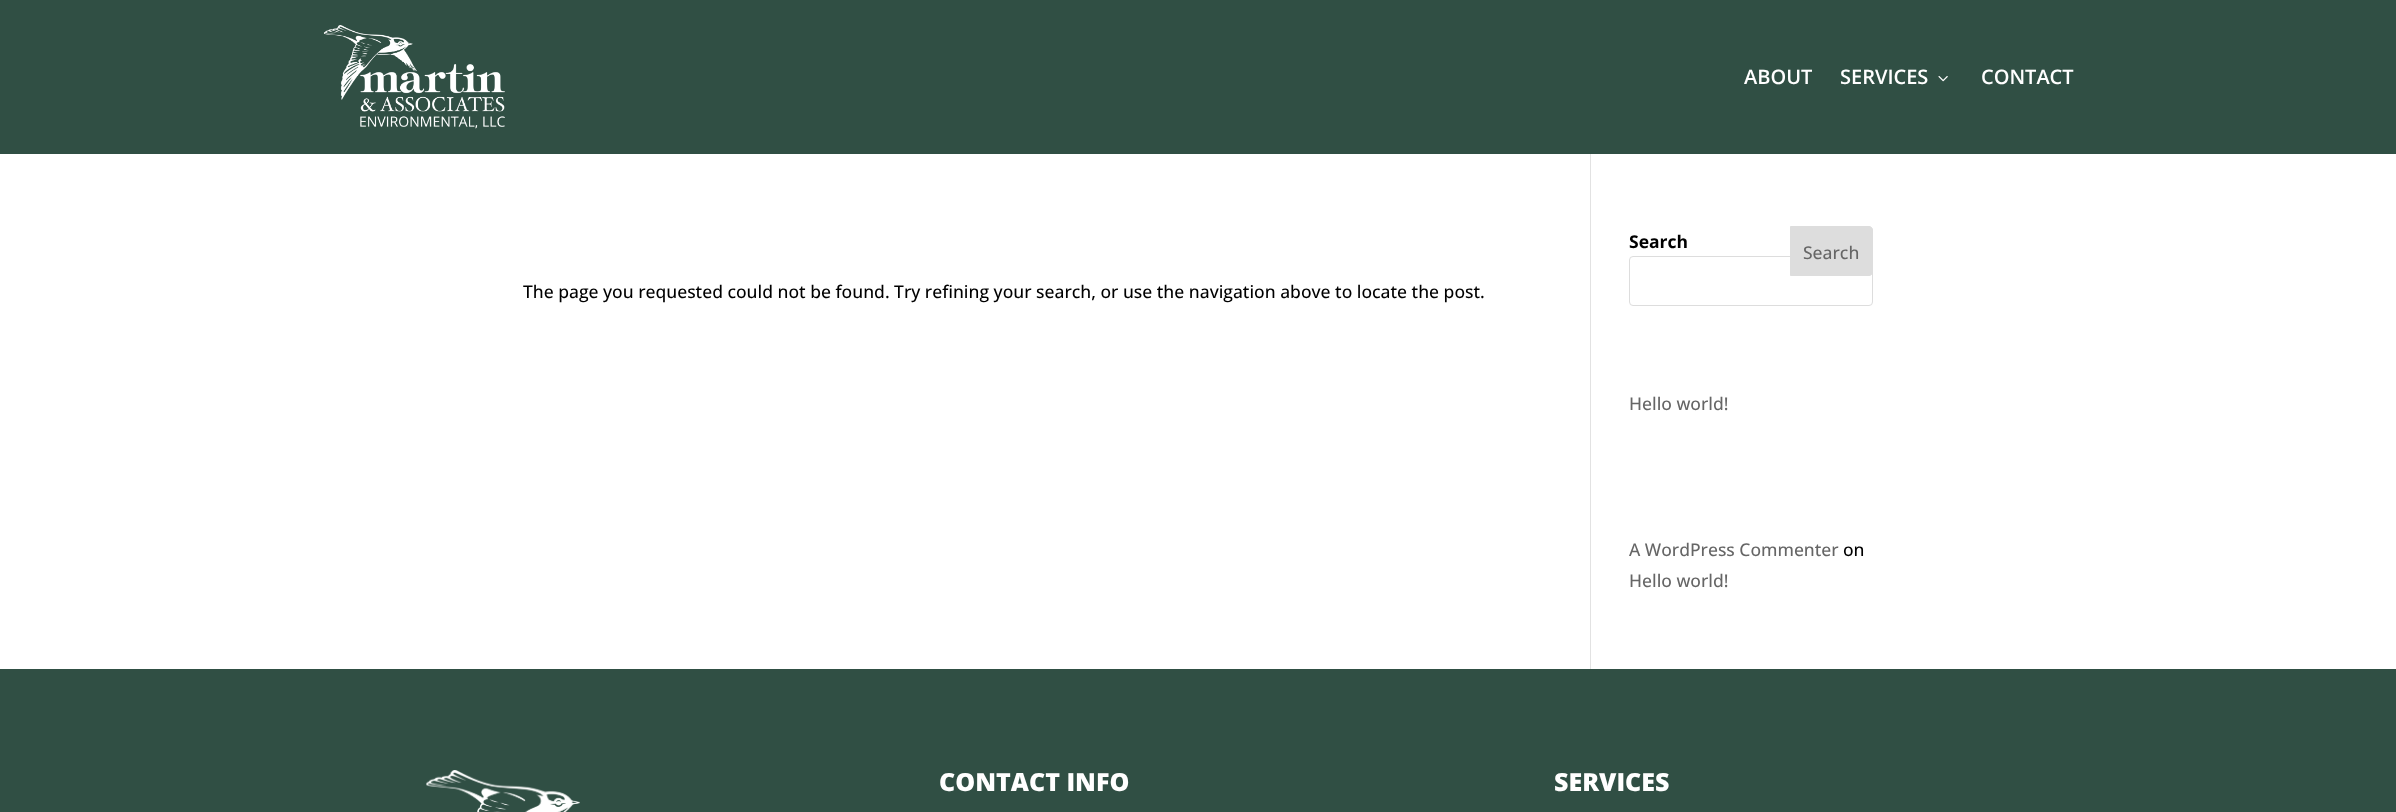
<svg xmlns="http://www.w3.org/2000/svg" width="2396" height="812">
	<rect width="100%" height="100%" fill="#FFFFFF" />
	<rect x="0" y="0" width="2396" height="154" fill="#304F44" />
	<image x="323" y="25" width="182" height="104" href="assets/img1.png" />
	<g font-family="Open Sans" font-size="20" font-weight="600" fill="#FFFFFF">
		<text x="1744" y="84">ABOUT</text>
		<text x="1840" y="84">SERVICES</text>
	</g>
	<image x="1938" y="76" width="10" height="6" href="assets/img2.png" />
	<text x="1981" y="84" font-family="Open Sans" font-size="20" font-weight="600" fill="#FFFFFF">CONTACT</text>
	<rect x="1590" y="154" width="1" height="515" fill="#E2E2E2" />
	<text x="523" y="298" font-family="Open Sans" font-size="17.5" font-weight="500" fill="#000000">The page you requested could not be found. Try refining your search, or use the navigation above to locate the post.</text>
	<text x="1629" y="248" font-family="Open Sans" font-size="17.5" font-weight="700" fill="#000000">Search</text>
	<rect x="1629.5" y="256.5" width="243" height="49" rx="3.5" fill="none" stroke="#DDDDDD" />
	<path d="M1790.5 226.5H1869C1871 226.5 1872.5 228 1872.5 230V272C1872.5 274 1871 275.5 1869 275.5H1790.5Z" fill="#DDDDDD" stroke="#DDDDDD" />
	<g font-family="Open Sans" font-size="17.5" font-weight="500" fill="#666666">
		<text x="1803" y="259">Search</text>
		<text x="1629" y="410">Hello world!</text>
		<text x="1629" y="556">A WordPress Commenter</text>
	</g>
	<text x="1843" y="556" font-family="Open Sans" font-size="17.5" font-weight="500" fill="#000000">on</text>
	<text x="1629" y="587" font-family="Open Sans" font-size="17.5" font-weight="500" fill="#666666">Hello world!</text>
	<rect x="0" y="669" width="2396" height="143" fill="#304F44" />
	<image x="426" y="770" width="154" height="42" href="assets/img3.png" />
	<g font-family="Open Sans" font-size="25" font-weight="800" fill="#FFFFFF">
		<text x="939" y="791">CONTACT INFO</text>
		<text x="1554" y="791">SERVICES</text>
	</g>
</svg>
